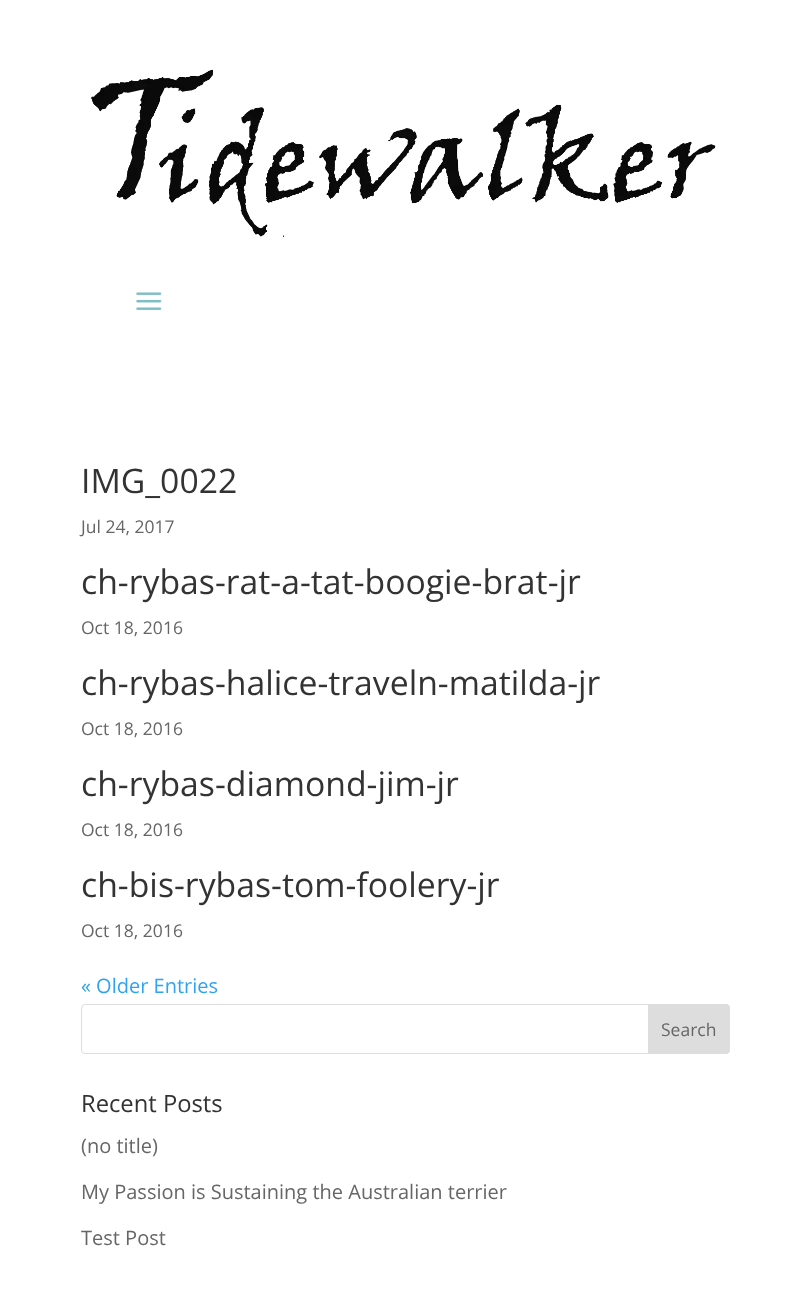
<svg xmlns="http://www.w3.org/2000/svg" width="811" height="1296">
	<rect width="100%" height="100%" fill="#FFFFFF" />
	<image x="91" y="69" width="625" height="168" href="assets/img1.png" />
	<image x="136" y="292" width="26" height="18" href="assets/img2.png" />
	<text x="81" y="493" font-family="Open Sans" font-size="33.75" fill="#333333">IMG_0022</text>
	<text x="81" y="533" font-family="Open Sans" font-size="17.5" fill="#666666">Jul 24, 2017</text>
	<text x="81" y="594" font-family="Open Sans" font-size="33.75" fill="#333333">ch-rybas-rat-a-tat-boogie-brat-jr</text>
	<text x="81" y="634" font-family="Open Sans" font-size="17.5" fill="#666666">Oct 18, 2016</text>
	<text x="81" y="695" font-family="Open Sans" font-size="33.75" fill="#333333">ch-rybas-halice-traveln-matilda-jr</text>
	<text x="81" y="735" font-family="Open Sans" font-size="17.5" fill="#666666">Oct 18, 2016</text>
	<text x="81" y="796" font-family="Open Sans" font-size="33.75" fill="#333333">ch-rybas-diamond-jim-jr</text>
	<text x="81" y="836" font-family="Open Sans" font-size="17.5" fill="#666666">Oct 18, 2016</text>
	<text x="81" y="897" font-family="Open Sans" font-size="33.75" fill="#333333">ch-bis-rybas-tom-foolery-jr</text>
	<text x="81" y="937" font-family="Open Sans" font-size="17.5" fill="#666666">Oct 18, 2016</text>
	<text x="81" y="993" font-family="Open Sans" font-size="20" fill="#2EA3F2">« Older Entries</text>
	<rect x="81.5" y="1004.5" width="648" height="49" rx="3.5" fill="none" stroke="#DDDDDD" />
	<path d="M648.5 1004.5H726C728 1004.5 729.5 1006 729.5 1008V1050C729.5 1052 728 1053.5 726 1053.5H648.5Z" fill="#DDDDDD" stroke="#DDDDDD" />
	<text x="661" y="1036" font-family="Open Sans" font-size="17.5" fill="#666666">Search</text>
	<text x="81" y="1112" font-family="Open Sans" font-size="23.75" fill="#333333">Recent Posts</text>
	<g font-family="Open Sans" font-size="20" fill="#666666">
		<text x="81" y="1153">(no title)</text>
		<text x="81" y="1199">My Passion is Sustaining the Australian terrier</text>
		<text x="81" y="1245">Test Post</text>
	</g>
</svg>
